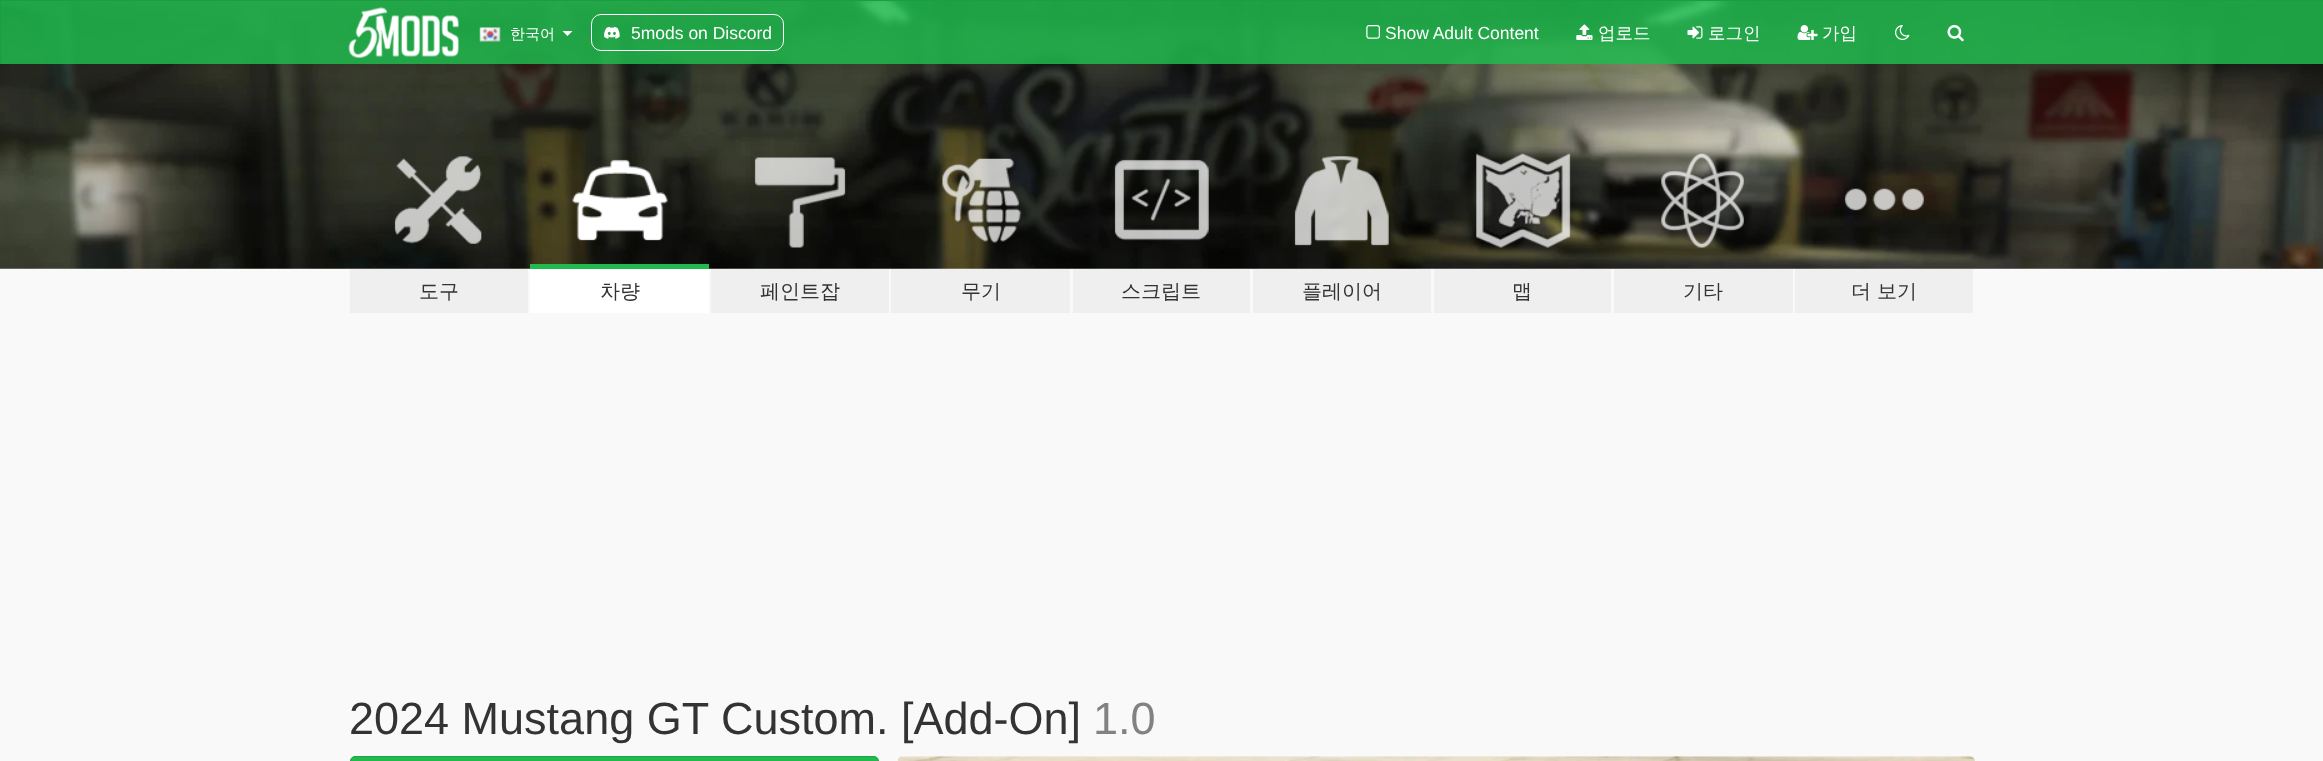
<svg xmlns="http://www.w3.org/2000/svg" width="2323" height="761">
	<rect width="100%" height="100%" fill="#F9F9F9" />
	<image x="0" y="1" width="2323" height="268" href="assets/img10.png" />
	<rect x="1" y="1" width="2322" height="63" fill="#20BA4E" fill-opacity="0.85" />
	<rect x="0" y="0" width="2323" height="1" fill="#1B9E42" />
	<rect x="0" y="0" width="1" height="64" fill="#1B9E42" />
	<image x="348" y="7" width="111" height="51" href="assets/img1.png" />
	<image x="479" y="27" width="22" height="15" href="assets/img2.png" />
	<text x="510" y="39" font-family="WenQuanYi Zen Hei" font-size="15" font-weight="500" fill="#FFFFFF">한국어</text>
	<path d="M562.5 31H572.5L567.5 36Z" fill="#FFFFFF" />
	<rect x="591.5" y="14.5" width="192" height="36" rx="9.5" fill="none" stroke="#FFFFFF" />
	<image x="604" y="26" width="16" height="13" href="assets/img3.png" />
	<text x="631" y="39" font-family="Liberation Sans" font-size="17.5" fill="#FFFFFF">5mods on Discord</text>
	<image x="1366" y="25" width="14" height="14" href="assets/img4.png" />
	<text x="1385" y="39" font-family="Liberation Sans" font-size="17.5" fill="#FFFFFF">Show Adult Content</text>
	<image x="1576" y="24" width="17" height="16" href="assets/img5.png" />
	<text x="1598" y="39" font-family="WenQuanYi Zen Hei" font-size="17.5" font-weight="500" fill="#FFFFFF">업로드</text>
	<image x="1687" y="26" width="16" height="13" href="assets/img6.png" />
	<text x="1708" y="39" font-family="WenQuanYi Zen Hei" font-size="17.5" font-weight="500" fill="#FFFFFF">로그인</text>
	<image x="1797" y="25" width="21" height="15" href="assets/img7.png" />
	<text x="1822" y="39" font-family="WenQuanYi Zen Hei" font-size="17.5" font-weight="500" fill="#FFFFFF">가입</text>
	<image x="1895" y="25" width="15" height="15" href="assets/img8.png" />
	<image x="1947" y="25" width="17" height="17" href="assets/img9.png" />
	<image x="394" y="156" width="88" height="88" href="assets/img11.png" />
	<rect x="350" y="269" width="178" height="44" fill="#EFEFEF" />
	<text x="419" y="298" font-family="WenQuanYi Zen Hei" font-size="20" font-weight="500" fill="#333333">도구</text>
	<image x="572" y="159" width="96" height="82" href="assets/img12.png" />
	<rect x="530" y="264" width="179" height="5" fill="#20BA4E" />
	<rect x="530" y="269" width="179" height="44" fill="#FFFFFF" />
	<text x="600" y="298" font-family="WenQuanYi Zen Hei" font-size="20" font-weight="500" fill="#333333">차량</text>
	<image x="754" y="157" width="92" height="91" href="assets/img13.png" />
	<rect x="711" y="269" width="178" height="44" fill="#EFEFEF" />
	<text x="760" y="298" font-family="WenQuanYi Zen Hei" font-size="20" font-weight="500" fill="#333333">페인트잡</text>
	<image x="942" y="158" width="80" height="85" href="assets/img14.png" />
	<rect x="891" y="269" width="179" height="44" fill="#EFEFEF" />
	<text x="961" y="298" font-family="WenQuanYi Zen Hei" font-size="20" font-weight="500" fill="#333333">무기</text>
	<image x="1114" y="159" width="95" height="82" href="assets/img15.png" />
	<rect x="1073" y="269" width="177" height="44" fill="#EFEFEF" />
	<text x="1121" y="298" font-family="WenQuanYi Zen Hei" font-size="20" font-weight="500" fill="#333333">스크립트</text>
	<image x="1294" y="156" width="95" height="90" href="assets/img16.png" />
	<rect x="1253" y="269" width="178" height="44" fill="#EFEFEF" />
	<text x="1302" y="298" font-family="WenQuanYi Zen Hei" font-size="20" font-weight="500" fill="#333333">플레이어</text>
	<image x="1476" y="153" width="95" height="95" href="assets/img17.png" />
	<rect x="1434" y="269" width="177" height="44" fill="#EFEFEF" />
	<text x="1512" y="298" font-family="WenQuanYi Zen Hei" font-size="20" font-weight="500" fill="#333333">맵</text>
	<image x="1661" y="153" width="83" height="95" href="assets/img18.png" />
	<rect x="1614" y="269" width="179" height="44" fill="#EFEFEF" />
	<text x="1683" y="298" font-family="WenQuanYi Zen Hei" font-size="20" font-weight="500" fill="#333333">기타</text>
	<image x="1844" y="188" width="80" height="23" href="assets/img19.png" />
	<rect x="1795" y="269" width="178" height="44" fill="#EFEFEF" />
	<text x="1851" y="298" font-family="WenQuanYi Zen Hei" font-size="20" font-weight="500" fill="#333333">더 보기</text>
	<text x="349" y="734" font-family="Liberation Sans" font-size="45" fill="#333333">2024 Mustang GT Custom. [Add-On]</text>
	<text x="1093" y="734" font-family="Liberation Sans" font-size="45" fill="#828282">1.0</text>
	<rect x="350.5" y="756.5" width="528" height="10" rx="4.5" fill="#20BA4E" stroke="#1CA445" />
	<image x="897" y="756" width="1078" height="5" href="assets/img20.png" />
</svg>
